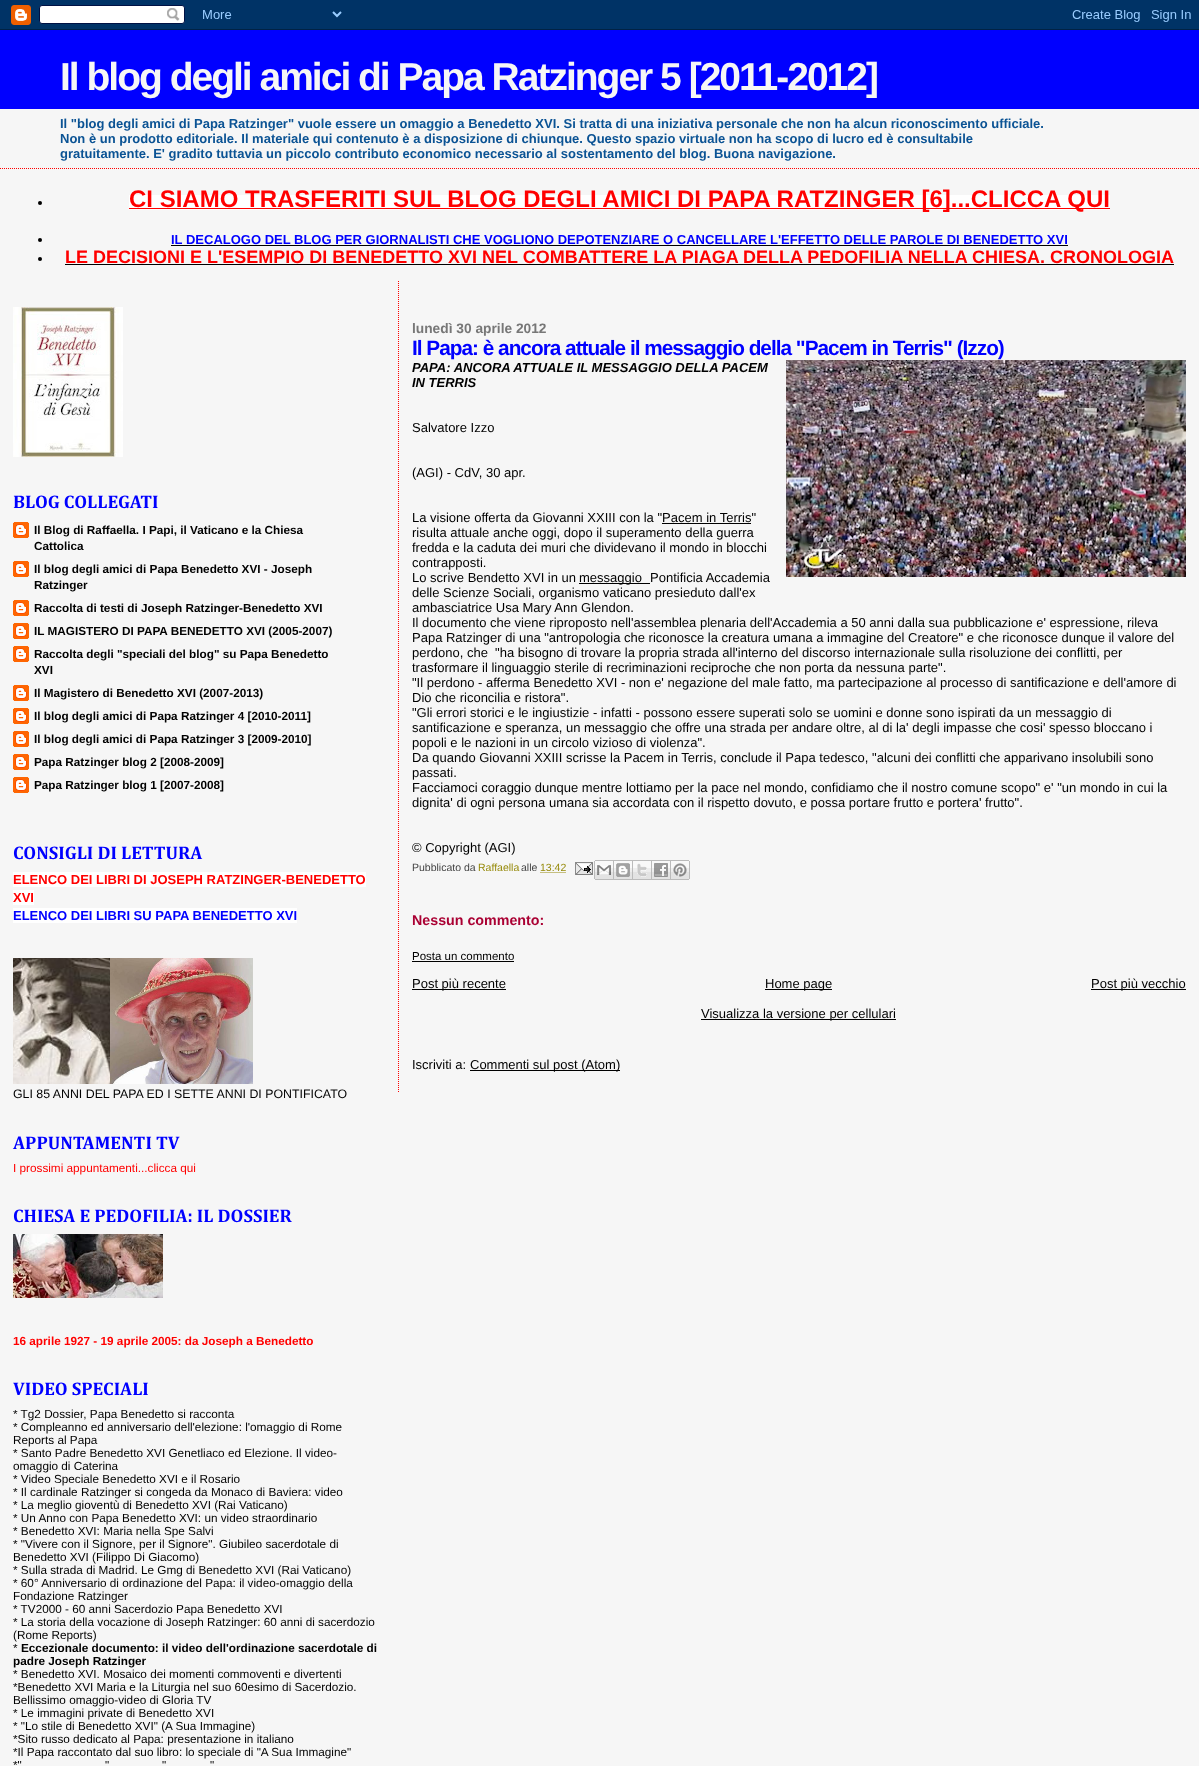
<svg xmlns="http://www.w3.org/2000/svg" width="1199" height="1766">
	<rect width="100%" height="100%" fill="#F6F6F6" />
	<image x="0" y="0" width="1199" height="30" href="assets/img1.png" />
	<path d="M0 168.5H1199" fill="none" stroke="#FF0000" stroke-dasharray="1 1" />
	<rect x="0" y="30" width="1199" height="79" fill="#0000FF" />
	<text x="60" y="90" font-family="Liberation Sans" font-size="39" font-weight="700" letter-spacing="-2" fill="#F6F6F6">Il blog degli amici di Papa Ratzinger 5 [2011-2012]</text>
	<g font-family="Liberation Sans" font-size="13" font-weight="700" fill="#0B5394">
		<text x="60" y="128">Il "blog degli amici di Papa Ratzinger" vuole essere un omaggio a Benedetto XVI. Si tratta di una iniziativa personale che non ha alcun riconoscimento ufficiale.</text>
		<text x="60" y="143">Non è un prodotto editoriale. Il materiale qui contenuto è a disposizione di chiunque. Questo spazio virtuale non ha scopo di lucro ed è consultabile</text>
		<text x="60" y="158">gratuitamente. E' gradito tuttavia un piccolo contributo economico necessario al sostentamento del blog. Buona navigazione.</text>
	</g>
	<circle cx="40" cy="203" r="2" fill="#000000" />
	<rect x="129" y="195" width="981" height="15" fill="#FFFFFF" />
	<rect x="129" y="208" width="981" height="1" fill="#FF0000" />
	<text x="129" y="207" font-family="Liberation Sans" font-size="24" font-weight="700" fill="#FF0000">CI SIAMO TRASFERITI SUL BLOG DEGLI AMICI DI PAPA RATZINGER [6]...CLICCA QUI</text>
	<circle cx="40" cy="240" r="2" fill="#000000" />
	<text x="171" y="244" font-family="Liberation Sans" font-size="13" font-weight="700" fill="#0000FF">IL DECALOGO DEL BLOG PER GIORNALISTI CHE VOGLIONO DEPOTENZIARE O CANCELLARE L'EFFETTO DELLE PAROLE DI BENEDETTO XVI</text>
	<rect x="171" y="245" width="897" height="1" fill="#000000" />
	<circle cx="40" cy="259" r="2" fill="#000000" />
	<text x="65" y="263" font-family="Liberation Sans" font-size="18" font-weight="700" fill="#FF0000">LE DECISIONI E L'ESEMPIO DI BENEDETTO XVI NEL COMBATTERE LA PIAGA DELLA PEDOFILIA NELLA CHIESA. CRONOLOGIA</text>
	<rect x="65" y="264" width="1109" height="1" fill="#000000" />
	<image x="13" y="307" width="110" height="150" href="assets/img2.png" />
	<text x="13" y="508" font-family="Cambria" font-size="18.5" font-weight="700" fill="#0000FF">BLOG COLLEGATI</text>
	<image x="13" y="522" width="16" height="16" href="assets/img3.png" />
	<g font-family="Liberation Sans" font-size="11.75" font-weight="700" fill="#000000">
		<text x="34" y="534">Il Blog di Raffaella. I Papi, il Vaticano e la Chiesa</text>
		<text x="34" y="550">Cattolica</text>
	</g>
	<image x="13" y="561" width="16" height="16" href="assets/img3.png" />
	<g font-family="Liberation Sans" font-size="11.75" font-weight="700" fill="#000000">
		<text x="34" y="573">Il blog degli amici di Papa Benedetto XVI - Joseph</text>
		<text x="34" y="589">Ratzinger</text>
	</g>
	<image x="13" y="600" width="16" height="16" href="assets/img3.png" />
	<text x="34" y="612" font-family="Liberation Sans" font-size="11.75" font-weight="700" fill="#000000">Raccolta di testi di Joseph Ratzinger-Benedetto XVI</text>
	<image x="13" y="623" width="16" height="16" href="assets/img3.png" />
	<text x="34" y="635" font-family="Liberation Sans" font-size="11.75" font-weight="700" fill="#000000">IL MAGISTERO DI PAPA BENEDETTO XVI (2005-2007)</text>
	<image x="13" y="646" width="16" height="16" href="assets/img3.png" />
	<g font-family="Liberation Sans" font-size="11.75" font-weight="700" fill="#000000">
		<text x="34" y="658">Raccolta degli "speciali del blog" su Papa Benedetto</text>
		<text x="34" y="674">XVI</text>
	</g>
	<image x="13" y="685" width="16" height="16" href="assets/img3.png" />
	<text x="34" y="697" font-family="Liberation Sans" font-size="11.75" font-weight="700" fill="#000000">Il Magistero di Benedetto XVI (2007-2013)</text>
	<image x="13" y="708" width="16" height="16" href="assets/img3.png" />
	<text x="34" y="720" font-family="Liberation Sans" font-size="11.75" font-weight="700" fill="#000000">Il blog degli amici di Papa Ratzinger 4 [2010-2011]</text>
	<image x="13" y="731" width="16" height="16" href="assets/img3.png" />
	<text x="34" y="743" font-family="Liberation Sans" font-size="11.75" font-weight="700" fill="#000000">Il blog degli amici di Papa Ratzinger 3 [2009-2010]</text>
	<image x="13" y="754" width="16" height="16" href="assets/img3.png" />
	<text x="34" y="766" font-family="Liberation Sans" font-size="11.75" font-weight="700" fill="#000000">Papa Ratzinger blog 2 [2008-2009]</text>
	<image x="13" y="777" width="16" height="16" href="assets/img3.png" />
	<text x="34" y="789" font-family="Liberation Sans" font-size="11.75" font-weight="700" fill="#000000">Papa Ratzinger blog 1 [2007-2008]</text>
	<text x="13" y="859" font-family="Cambria" font-size="18.5" font-weight="700" fill="#0000FF">CONSIGLI DI LETTURA</text>
	<rect x="13" y="872" width="353" height="15" fill="#FFFFFF" />
	<text x="13" y="884" font-family="Liberation Sans" font-size="13" font-weight="700" fill="#FF0000">ELENCO DEI LIBRI DI JOSEPH RATZINGER-BENEDETTO</text>
	<rect x="13" y="890" width="21" height="15" fill="#FFFFFF" />
	<text x="13" y="902" font-family="Liberation Sans" font-size="13" font-weight="700" fill="#FF0000">XVI</text>
	<rect x="13" y="908" width="284" height="15" fill="#FFFFFF" />
	<text x="13" y="920" font-family="Liberation Sans" font-size="13" font-weight="700" fill="#0000FF">ELENCO DEI LIBRI SU PAPA BENEDETTO XVI</text>
	<image x="13" y="958" width="240" height="126" href="assets/img4.png" />
	<text x="13" y="1098" font-family="Liberation Sans" font-size="12.35" fill="#000000">GLI 85 ANNI DEL PAPA ED I SETTE ANNI DI PONTIFICATO</text>
	<text x="13" y="1149" font-family="Cambria" font-size="18.5" font-weight="700" fill="#0000FF">APPUNTAMENTI TV</text>
	<text x="13" y="1172" font-family="Liberation Sans" font-size="11.75" fill="#FF0000">I prossimi appuntamenti...clicca qui</text>
	<text x="13" y="1222" font-family="Cambria" font-size="18.5" font-weight="700" fill="#0000FF">CHIESA E PEDOFILIA: IL DOSSIER</text>
	<image x="13" y="1234" width="150" height="64" href="assets/img5.png" />
	<text x="13" y="1345" font-family="Liberation Sans" font-size="11.75" font-weight="700" fill="#FF0000">16 aprile 1927 - 19 aprile 2005: da Joseph a Benedetto</text>
	<text x="13" y="1395" font-family="Cambria" font-size="18.5" font-weight="700" fill="#0000FF">VIDEO SPECIALI</text>
	<g font-family="Liberation Sans" font-size="11.75" fill="#000000">
		<text x="13" y="1418">* Tg2 Dossier, Papa Benedetto si racconta</text>
		<text x="13" y="1431">* Compleanno ed anniversario dell'elezione: l'omaggio di Rome</text>
		<text x="13" y="1444">Reports al Papa</text>
		<text x="13" y="1457">* Santo Padre Benedetto XVI Genetliaco ed Elezione. Il video-</text>
		<text x="13" y="1470">omaggio di Caterina</text>
		<text x="13" y="1483">* Video Speciale Benedetto XVI e il Rosario</text>
		<text x="13" y="1496">* Il cardinale Ratzinger si congeda da Monaco di Baviera: video</text>
		<text x="13" y="1509">* La meglio gioventù di Benedetto XVI (Rai Vaticano)</text>
		<text x="13" y="1522">* Un Anno con Papa Benedetto XVI: un video straordinario</text>
		<text x="13" y="1535">* Benedetto XVI: Maria nella Spe Salvi</text>
		<text x="13" y="1548">* "Vivere con il Signore, per il Signore". Giubileo sacerdotale di</text>
		<text x="13" y="1561">Benedetto XVI (Filippo Di Giacomo)</text>
		<text x="13" y="1574">* Sulla strada di Madrid. Le Gmg di Benedetto XVI (Rai Vaticano)</text>
		<text x="13" y="1587">* 60° Anniversario di ordinazione del Papa: il video-omaggio della</text>
		<text x="13" y="1600">Fondazione Ratzinger</text>
		<text x="13" y="1613">* TV2000 - 60 anni Sacerdozio Papa Benedetto XVI</text>
		<text x="13" y="1626">* La storia della vocazione di Joseph Ratzinger: 60 anni di sacerdozio</text>
		<text x="13" y="1639">(Rome Reports)</text>
		<text x="13" y="1652">*</text>
	</g>
	<g font-family="Liberation Sans" font-size="11.75" font-weight="700" fill="#000000">
		<text x="21" y="1652">Eccezionale documento: il video dell'ordinazione sacerdotale di</text>
		<text x="13" y="1665">padre Joseph Ratzinger</text>
	</g>
	<g font-family="Liberation Sans" font-size="11.75" fill="#000000">
		<text x="13" y="1678">* Benedetto XVI. Mosaico dei momenti commoventi e divertenti</text>
		<text x="13" y="1691">*Benedetto XVI Maria e la Liturgia nel suo 60esimo di Sacerdozio.</text>
		<text x="13" y="1704">Bellissimo omaggio-video di Gloria TV</text>
		<text x="13" y="1717">* Le immagini private di Benedetto XVI</text>
		<text x="13" y="1730">* "Lo stile di Benedetto XVI" (A Sua Immagine)</text>
		<text x="13" y="1743">*Sito russo dedicato al Papa: presentazione in italiano</text>
		<text x="13" y="1756">*Il Papa raccontato dal suo libro: lo speciale di "A Sua Immagine"</text>
		<text x="13" y="1769">*"</text>
		<text x="105" y="1769">"</text>
		<text x="162" y="1769">"</text>
		<text x="210" y="1769">"</text>
	</g>
	<path d="M398.5 281V1092" fill="none" stroke="#FF0000" stroke-dasharray="1 1" />
	<text x="412" y="333" font-family="Liberation Sans" font-size="13.75" font-weight="700" fill="#777777">lunedì 30 aprile 2012</text>
	<text x="412" y="355" font-family="Liberation Sans" font-size="20.8" font-weight="700" letter-spacing="-1" fill="#0000FF">Il Papa: è ancora attuale il messaggio della "Pacem in Terris" (Izzo)</text>
	<text x="412" y="372" font-family="Liberation Sans" font-size="13" font-weight="700" font-style="italic" fill="#000000">PAPA: ANCORA ATTUALE IL MESSAGGIO DELLA PACEM</text>
	<image x="786" y="360" width="400" height="217" href="assets/img6.png" />
	<text x="412" y="387" font-family="Liberation Sans" font-size="13" font-weight="700" font-style="italic" fill="#000000">IN TERRIS</text>
	<g font-family="Liberation Sans" font-size="13" fill="#000000">
		<text x="412" y="432">Salvatore Izzo</text>
		<text x="412" y="477">(AGI) - CdV, 30 apr.</text>
		<text x="412" y="522">La visione offerta da Giovanni XXIII con la "Pacem in Terris"</text>
	</g>
	<rect x="662" y="523" width="89" height="1" fill="#000000" />
	<g font-family="Liberation Sans" font-size="13" fill="#000000">
		<text x="412" y="537">risulta attuale anche oggi, dopo il superamento della guerra</text>
		<text x="412" y="552">fredda e la caduta dei muri che dividevano il mondo in blocchi</text>
		<text x="412" y="567">contrapposti.</text>
		<text x="412" y="582">Lo scrive Bendetto XVI in un</text>
	</g>
	<rect x="579" y="583" width="71" height="1" fill="#000000" />
	<g font-family="Liberation Sans" font-size="13" fill="#000000">
		<text x="579" y="582">messaggio</text>
		<text x="650" y="582">Pontificia Accademia</text>
		<text x="412" y="597">delle Scienze Sociali, organismo vaticano presieduto dall'ex</text>
		<text x="412" y="612">ambasciatrice Usa Mary Ann Glendon.</text>
		<text x="412" y="627">Il documento che viene riproposto nell'assemblea plenaria dell'Accademia a 50 anni dalla sua pubblicazione e' espressione, rileva</text>
		<text x="412" y="642">Papa Ratzinger di una "antropologia che riconosce la creatura umana a immagine del Creatore" e che riconosce dunque il valore del</text>
		<text x="412" y="657" xml:space="preserve">perdono, che  "ha bisogno di trovare la propria strada all'interno del discorso internazionale sulla risoluzione dei conflitti, per</text>
		<text x="412" y="672">trasformare il linguaggio sterile di recriminazioni reciproche che non porta da nessuna parte".</text>
		<text x="412" y="687">"Il perdono - afferma Benedetto XVI - non e' negazione del male fatto, ma partecipazione al processo di santificazione e dell'amore di</text>
		<text x="412" y="702">Dio che riconcilia e ristora".</text>
		<text x="412" y="717">"Gli errori storici e le ingiustizie - infatti - possono essere superati solo se uomini e donne sono ispirati da un messaggio di</text>
		<text x="412" y="732">santificazione e speranza, un messaggio che offre una strada per andare oltre, al di la' degli impasse che cosi' spesso bloccano i</text>
		<text x="412" y="747">popoli e le nazioni in un circolo vizioso di violenza".</text>
		<text x="412" y="762">Da quando Giovanni XXIII scrisse la Pacem in Terris, conclude il Papa tedesco, "alcuni dei conflitti che apparivano insolubili sono</text>
		<text x="412" y="777">passati.</text>
		<text x="412" y="792">Facciamoci coraggio dunque mentre lottiamo per la pace nel mondo, confidiamo che il nostro comune scopo" e' "un mondo in cui la</text>
		<text x="412" y="807">dignita' di ogni persona umana sia accordata con il rispetto dovuto, e possa portare frutto e portera' frutto".</text>
		<text x="412" y="852">© Copyright (AGI)</text>
	</g>
	<text x="412" y="871" font-family="Liberation Sans" font-size="10.5" fill="#444444">Pubblicato da</text>
	<text x="478" y="871" font-family="Liberation Sans" font-size="10.5" fill="#968A0A">Raffaella</text>
	<text x="521" y="871" font-family="Liberation Sans" font-size="10.5" fill="#444444">alle</text>
	<text x="540" y="871" font-family="Liberation Sans" font-size="10.5" fill="#968A0A">13:42</text>
	<path d="M540.5 872.5H566.5" fill="none" stroke="#968A0A" stroke-dasharray="1 1" />
	<image x="575" y="862" width="18" height="13" href="assets/img7.png" />
	<image x="594" y="860" width="20" height="20" href="assets/img8.png" />
	<image x="614" y="860" width="19" height="20" href="assets/img9.png" />
	<image x="633" y="860" width="19" height="20" href="assets/img10.png" />
	<image x="652" y="860" width="19" height="20" href="assets/img11.png" />
	<image x="671" y="860" width="19" height="20" href="assets/img12.png" />
	<text x="412" y="925" font-family="Liberation Sans" font-size="14.25" font-weight="700" fill="#AA0033">Nessun commento:</text>
	<text x="412" y="960" font-family="Liberation Sans" font-size="11.5" fill="#000000">Posta un commento</text>
	<rect x="412" y="961" width="102" height="1" fill="#000000" />
	<rect x="412" y="989" width="94" height="1" fill="#000000" />
	<text x="412" y="988" font-family="Liberation Sans" font-size="13" fill="#000000">Post più recente</text>
	<rect x="765" y="989" width="67" height="1" fill="#000000" />
	<text x="765" y="988" font-family="Liberation Sans" font-size="13" fill="#000000">Home page</text>
	<rect x="1091" y="989" width="95" height="1" fill="#000000" />
	<text x="1091" y="988" font-family="Liberation Sans" font-size="13" fill="#000000">Post più vecchio</text>
	<rect x="701" y="1019" width="195" height="1" fill="#000000" />
	<g font-family="Liberation Sans" font-size="13" fill="#000000">
		<text x="701" y="1018">Visualizza la versione per cellulari</text>
		<text x="412" y="1069">Iscriviti a:</text>
	</g>
	<rect x="470" y="1070" width="150" height="1" fill="#000000" />
	<text x="470" y="1069" font-family="Liberation Sans" font-size="13" fill="#000000">Commenti sul post (Atom)</text>
</svg>
